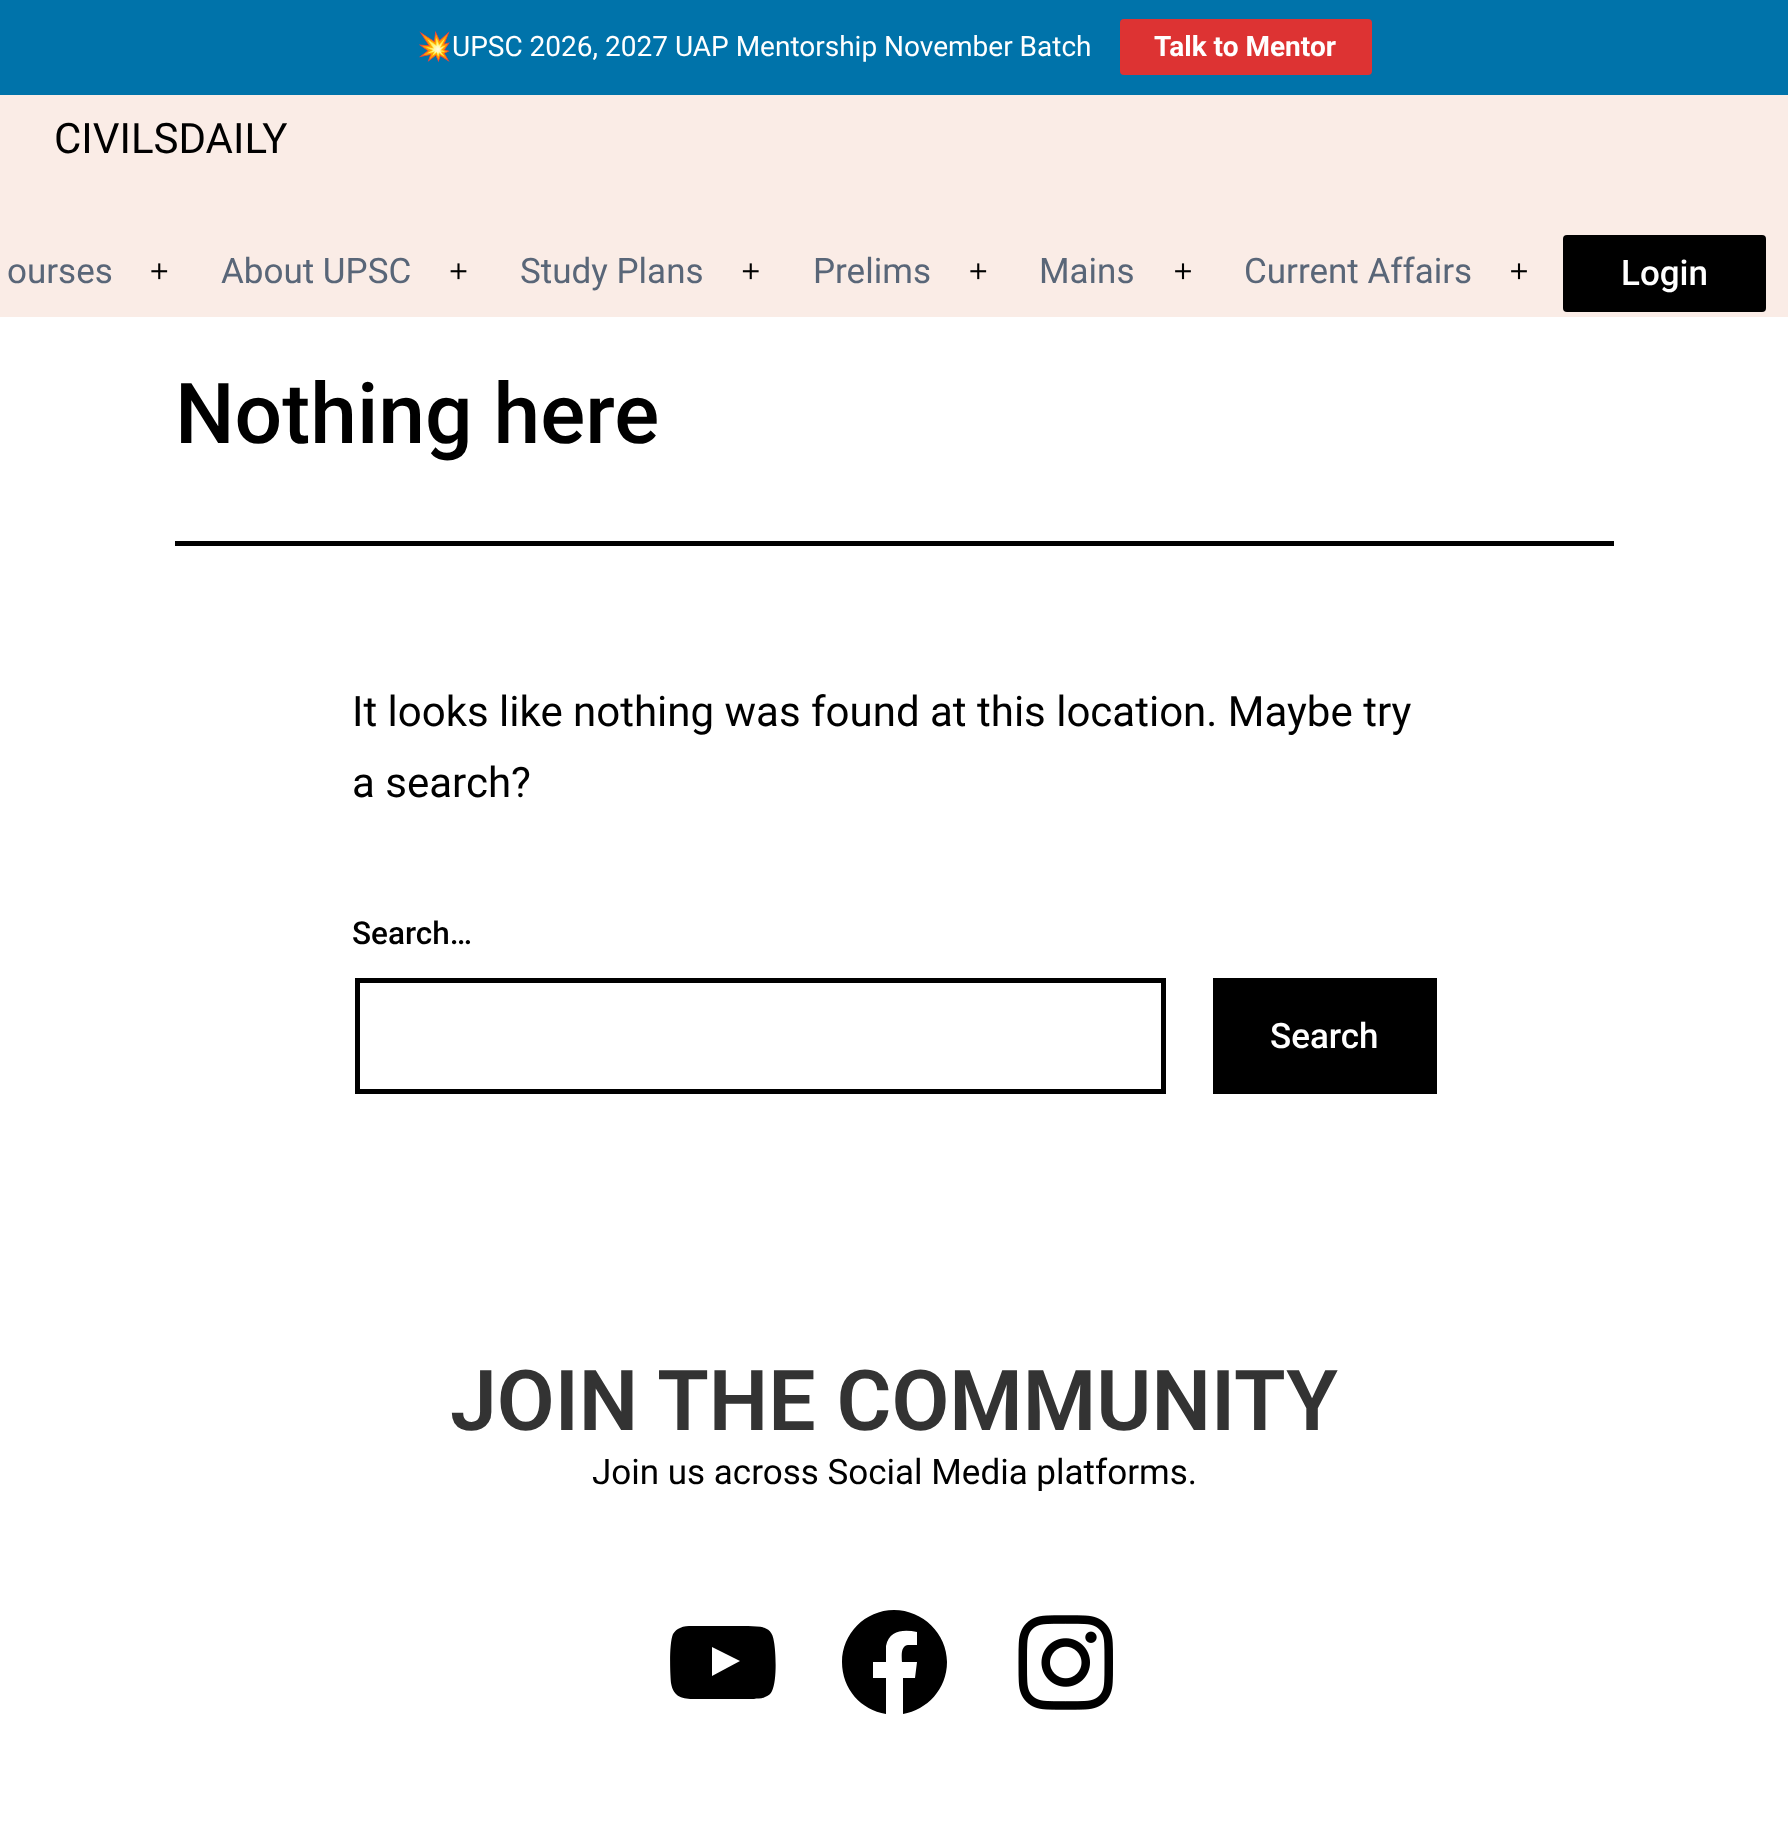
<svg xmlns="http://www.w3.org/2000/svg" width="1788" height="1838">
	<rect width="100%" height="100%" fill="#FFFFFF" />
	<rect x="0" y="0" width="1788" height="95" fill="#0073AA" />
	<text x="417" y="56" font-family="Noto Color Emoji" font-size="28" fill="#FFFFFF">💥</text>
	<text x="452" y="56" font-family="Roboto" font-size="28" fill="#FFFFFF">UPSC 2026, 2027 UAP Mentorship November Batch</text>
	<rect x="1120" y="19" width="252" height="56" rx="4" fill="#DD3333" />
	<text x="1154" y="56" font-family="Roboto" font-size="28" font-weight="700" fill="#FFFFFF">Talk to Mentor</text>
	<rect x="0" y="95" width="1788" height="222" fill="#FAECE6" />
	<text x="54" y="153" font-family="Roboto" font-size="42" fill="#000000">CIVILSDAILY</text>
	<text x="7" y="283" font-family="Roboto" font-size="35" fill="#596678">ourses</text>
	<image x="151" y="263" width="17" height="17" href="assets/img1.png" />
	<text x="221" y="283" font-family="Roboto" font-size="35" fill="#596678">About UPSC</text>
	<image x="450" y="263" width="17" height="17" href="assets/img2.png" />
	<text x="520" y="283" font-family="Roboto" font-size="35" fill="#596678">Study Plans</text>
	<image x="742" y="263" width="17" height="17" href="assets/img3.png" />
	<text x="813" y="283" font-family="Roboto" font-size="35" fill="#596678">Prelims</text>
	<image x="970" y="263" width="17" height="17" href="assets/img1.png" />
	<text x="1039" y="283" font-family="Roboto" font-size="35" fill="#596678">Mains</text>
	<image x="1175" y="263" width="16" height="17" href="assets/img4.png" />
	<text x="1244" y="283" font-family="Roboto" font-size="35" fill="#596678">Current Affairs</text>
	<image x="1511" y="263" width="16" height="17" href="assets/img4.png" />
	<rect x="1563" y="235" width="203" height="77" rx="4" fill="#000000" />
	<text x="1621" y="285" font-family="Roboto" font-size="35" font-weight="500" fill="#FFFFFF">Login</text>
	<rect x="175" y="541" width="1439" height="5" fill="#000000" />
	<text x="175" y="443" font-family="Roboto" font-size="84" font-weight="500" fill="#000000">Nothing here</text>
	<g font-family="Roboto" font-size="42" fill="#000000">
		<text x="352" y="726">It looks like nothing was found at this location. Maybe try</text>
		<text x="352" y="797">a search?</text>
	</g>
	<text x="352" y="944" font-family="Roboto" font-size="31.5" font-weight="500" fill="#000000">Search…</text>
	<rect x="357.5" y="980.5" width="806" height="111" fill="none" stroke="#000000" stroke-width="5" />
	<rect x="1213" y="978" width="224" height="116" fill="#000000" />
	<text x="1270" y="1048" font-family="Roboto" font-size="35" font-weight="500" fill="#FFFFFF">Search</text>
	<text x="450" y="1430" font-family="Roboto" font-size="84" font-weight="600" fill="#333333">JOIN THE COMMUNITY</text>
	<text x="592" y="1484" font-family="Roboto" font-size="35" fill="#000000">Join us across Social Media platforms.</text>
	<path d="M774 1642C772 1625 761 1627 748 1626H715H692C688 1626 684 1626 680 1628C677 1629 675 1631 673 1634C669 1644 670 1672 671 1683C674 1701 688 1699 702 1699H731H754C757 1698 762 1699 765 1697C768 1696 771 1694 772 1691C777 1681 776 1653 774 1642ZM712 1676V1647L740 1661Z" fill="#000000" />
	<path d="M894 1610C865 1610 842 1634 842 1662C842 1689 861 1710 886 1714V1678H873V1662H886V1646C889 1630 904 1629 917 1632V1645H908C900 1646 902 1657 902 1662H917L915 1678H903V1714C927 1710 947 1689 947 1662C947 1634 923 1610 894 1610Z" fill="#000000" />
	<image x="1018" y="1615" width="95" height="95" href="assets/img5.png" />
</svg>
